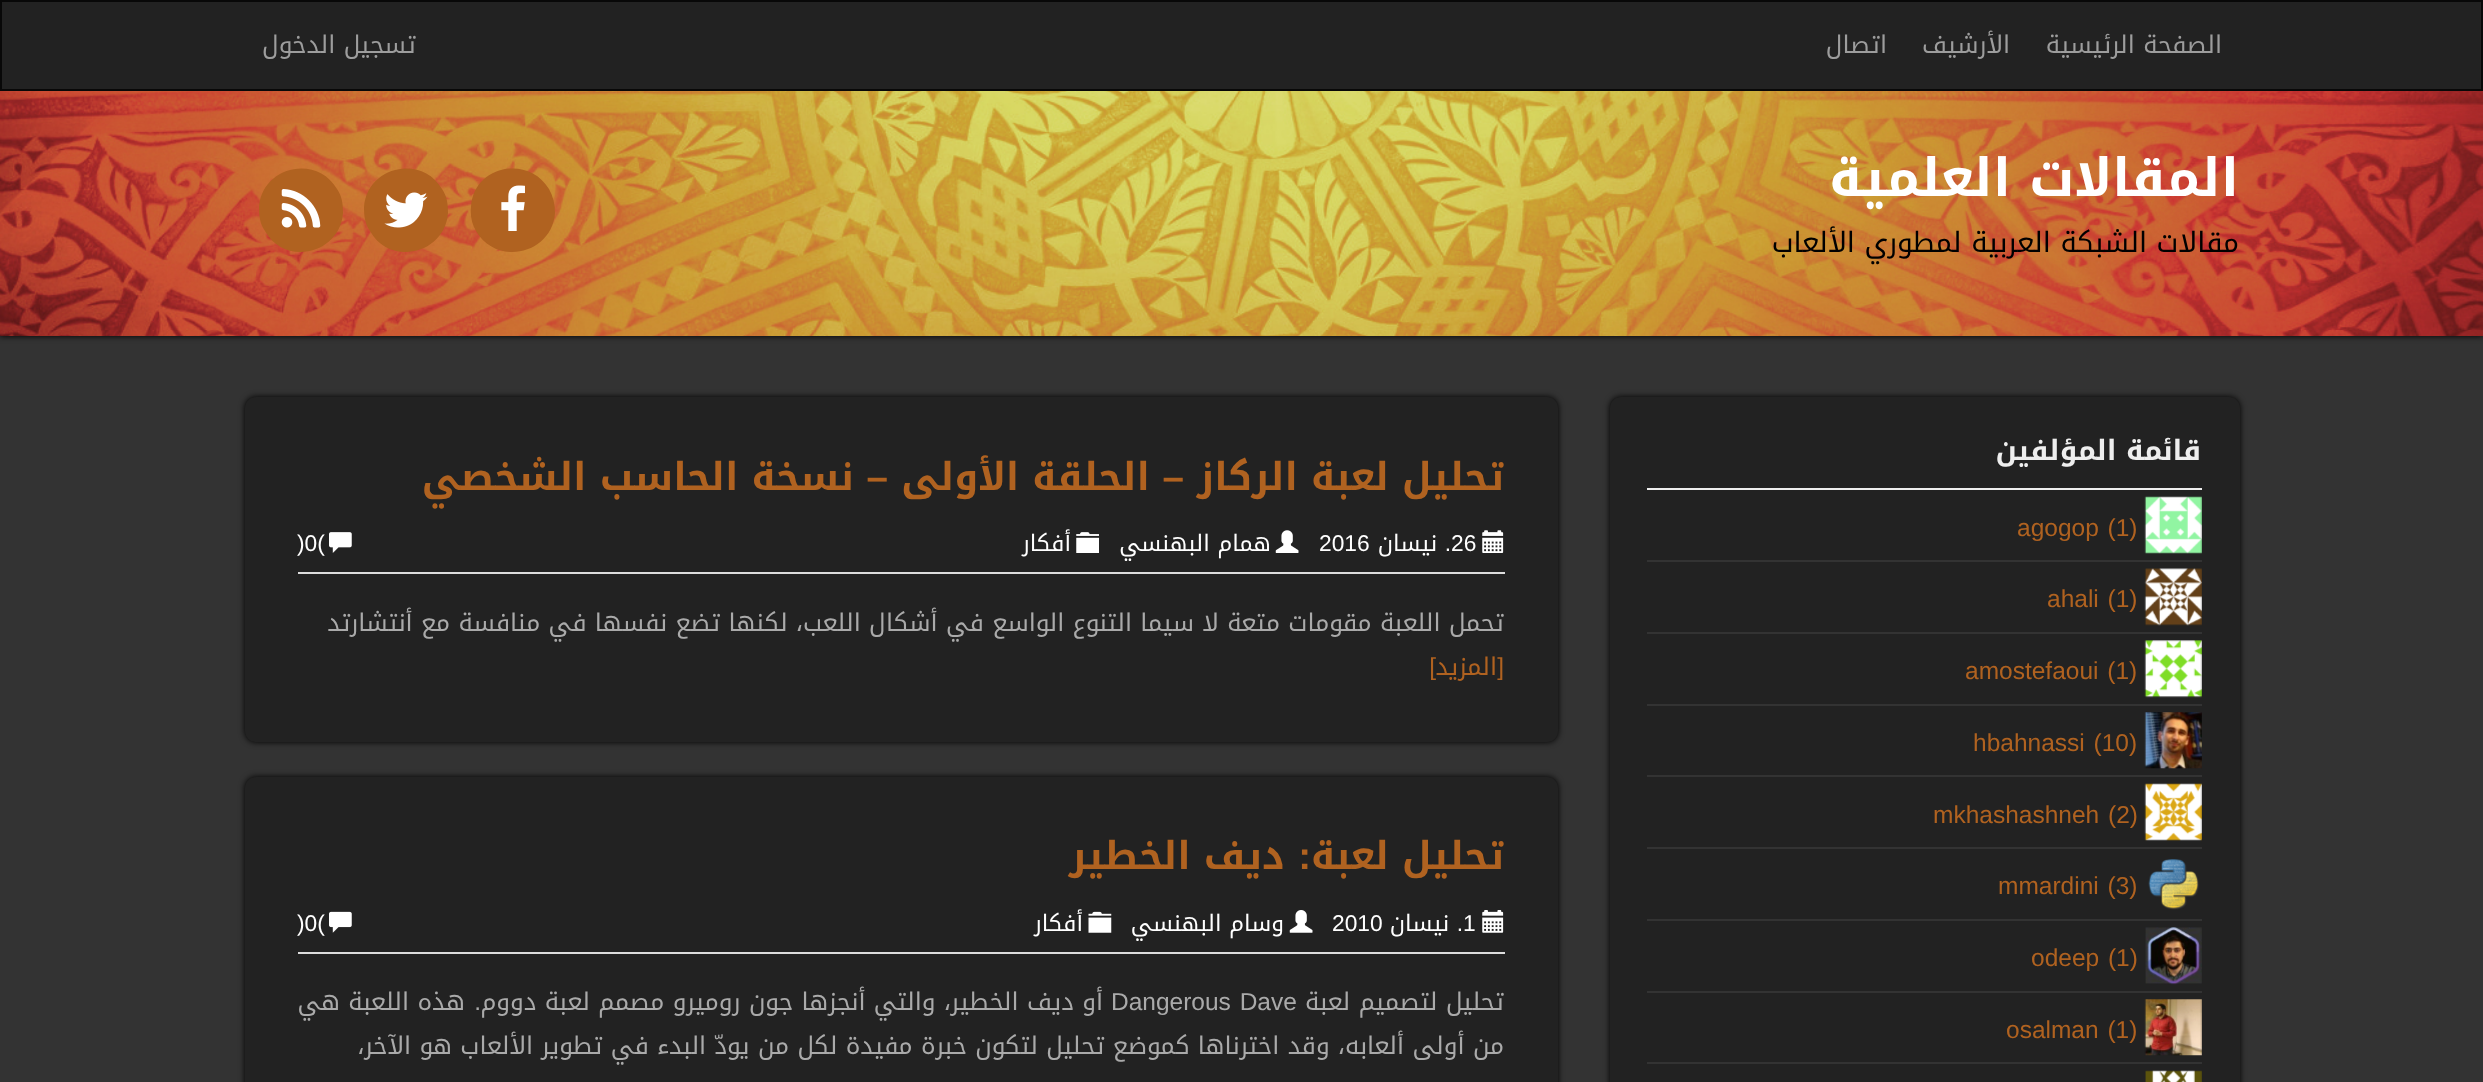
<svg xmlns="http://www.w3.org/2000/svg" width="2483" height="1082">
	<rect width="100%" height="100%" fill="#333333" />
	<rect x="0" y="91" width="2483" height="245" fill="#000000" filter="blur(3px)" />
	<rect x="1" y="1" width="2481" height="89" fill="#222222" stroke="#080808" stroke-width="2" />
	<g font-family="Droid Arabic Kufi" font-size="24.5" direction="rtl" fill="#9D9D9D">
		<text x="2222" y="53">الصفحة الرئيسية</text>
		<text x="2010" y="53">الأرشيف</text>
		<text x="1887" y="53">اتصال</text>
		<text x="416" y="53">تسجيل الدخول</text>
	</g>
	<image x="0" y="91" width="2483" height="245" href="assets/img1.png" />
	<text x="2239" y="196" font-family="Droid Arabic Kufi" font-size="52.5" font-weight="700" direction="rtl" fill="#FFFFFF">المقالات العلمية</text>
	<text x="2239" y="252" font-family="Droid Arabic Kufi" font-size="28" direction="rtl" fill="#000000">مقالات الشبكة العربية لمطوري الألعاب</text>
	<path d="M549 189C553 196 555 204 555 213C552 254 497 267 476 231C472 224 470 216 471 207C473 166 528 154 549 189Z" fill="#B06220" />
	<image x="501" y="185" width="24" height="46" href="assets/img2.png" />
	<path d="M442 189C447 196 448 204 448 213C445 254 390 267 370 231C365 224 364 216 364 207C367 166 422 154 442 189Z" fill="#B06220" />
	<image x="384" y="192" width="44" height="36" href="assets/img3.png" />
	<path d="M337 189C342 196 343 204 343 213C340 254 285 267 265 231C260 224 259 216 259 207C262 166 317 154 337 189Z" fill="#B06220" />
	<image x="281" y="189" width="40" height="39" href="assets/img4.png" />
	<rect x="1610" y="397" width="630" height="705" rx="11" fill="#000000" filter="blur(3px)" />
	<rect x="1610" y="397" width="630" height="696" rx="11" fill="#222222" />
	<rect x="1647" y="488" width="555" height="2" fill="#EEEEEE" />
	<text x="2201" y="460" font-family="Droid Arabic Kufi" font-size="28" font-weight="700" direction="rtl" fill="#EEEEEE">قائمة المؤلفين</text>
	<rect x="1647" y="560" width="555" height="2" fill="#333333" />
	<image x="2144" y="496" width="58" height="58" href="assets/img5.png" />
	<text x="2017" y="536" word-spacing="2" font-family="Liberation Sans" font-size="24.5" fill="#B06220">agogop (1)</text>
	<rect x="1647" y="632" width="555" height="2" fill="#333333" />
	<image x="2144" y="568" width="58" height="58" href="assets/img6.png" />
	<text x="2047" y="607" word-spacing="2" font-family="Liberation Sans" font-size="24.5" fill="#B06220">ahali (1)</text>
	<rect x="1647" y="704" width="555" height="2" fill="#333333" />
	<image x="2144" y="640" width="58" height="58" href="assets/img7.png" />
	<text x="1965" y="679" word-spacing="2" font-family="Liberation Sans" font-size="24.5" fill="#B06220">amostefaoui (1)</text>
	<rect x="1647" y="775" width="555" height="2" fill="#333333" />
	<image x="2144" y="712" width="58" height="57" href="assets/img8.png" />
	<text x="1973" y="751" word-spacing="2" font-family="Liberation Sans" font-size="24.5" fill="#B06220">hbahnassi (10)</text>
	<rect x="1647" y="847" width="555" height="2" fill="#333333" />
	<image x="2144" y="783" width="58" height="58" href="assets/img9.png" />
	<text x="1933" y="823" word-spacing="2" font-family="Liberation Sans" font-size="24.5" fill="#B06220">mkhashashneh (2)</text>
	<rect x="1647" y="919" width="555" height="2" fill="#333333" />
	<image x="2148" y="859" width="51" height="51" href="assets/img10.png" />
	<text x="1998" y="894" word-spacing="2" font-family="Liberation Sans" font-size="24.5" fill="#B06220">mmardini (3)</text>
	<rect x="1647" y="991" width="555" height="2" fill="#333333" />
	<image x="2145" y="927" width="57" height="58" href="assets/img11.png" />
	<text x="2031" y="966" word-spacing="2" font-family="Liberation Sans" font-size="24.5" fill="#B06220">odeep (1)</text>
	<rect x="1647" y="1062" width="555" height="2" fill="#333333" />
	<image x="2144" y="999" width="58" height="57" href="assets/img12.png" />
	<text x="2006" y="1038" word-spacing="2" font-family="Liberation Sans" font-size="24.5" fill="#B06220">osalman (1)</text>
	<image x="2145" y="1070" width="57" height="12" href="assets/img13.png" />
	<rect x="245" y="397" width="1313" height="345" rx="11" fill="#000000" filter="blur(3px)" />
	<rect x="245" y="397" width="1313" height="345" rx="11" fill="#222222" />
	<rect x="298" y="572" width="1207" height="2" fill="#DDDDDD" />
	<text x="1504" y="490" font-family="Droid Arabic Kufi" font-size="38.5" font-weight="700" direction="rtl" fill="#B06220">تحليل لعبة الركاز</text>
	<text x="1184" y="490" font-family="Liberation Sans" font-size="38.5" font-weight="700" direction="rtl" fill="#B06220">–</text>
	<text x="1150" y="490" font-family="Droid Arabic Kufi" font-size="38.5" font-weight="700" direction="rtl" fill="#B06220">الحلقة الأولى</text>
	<text x="888" y="490" font-family="Liberation Sans" font-size="38.5" font-weight="700" direction="rtl" fill="#B06220">–</text>
	<text x="854" y="490" font-family="Droid Arabic Kufi" font-size="38.5" font-weight="700" direction="rtl" fill="#B06220">نسخة الحاسب الشخصي</text>
	<image x="1482" y="530" width="22" height="23" href="assets/img14.png" />
	<text x="1451" y="551" font-family="Liberation Sans" font-size="22.75" fill="#FFFFFF">26</text>
	<text x="1451" y="551" font-family="Liberation Sans" font-size="22.75" direction="rtl" fill="#FFFFFF">.</text>
	<text x="1437" y="551" font-family="Droid Arabic Kufi" font-size="22.75" direction="rtl" fill="#FFFFFF">نيسان</text>
	<text x="1319" y="551" font-family="Liberation Sans" font-size="22.75" fill="#FFFFFF">2016</text>
	<image x="1275" y="530" width="24" height="23" href="assets/img15.png" />
	<text x="1271" y="551" font-family="Droid Arabic Kufi" font-size="22.75" direction="rtl" fill="#FFFFFF">همام البهنسي</text>
	<image x="1076" y="532" width="23" height="21" href="assets/img16.png" />
	<text x="1071" y="551" font-family="Droid Arabic Kufi" font-size="22.75" direction="rtl" fill="#FFFFFF">أفكار</text>
	<image x="329" y="532" width="23" height="21" href="assets/img17.png" />
	<text x="297" y="551" font-family="Liberation Sans" font-size="22.75" fill="#FFFFFF">)0(</text>
	<text x="1504" y="631" font-family="Droid Arabic Kufi" font-size="24.5" direction="rtl" fill="#AAAAAA">تحمل اللعبة مقومات متعة لا سيما التنوع الواسع في أشكال اللعب، لكنها تضع نفسها في منافسة مع أنتشارتد</text>
	<text x="1504" y="675" font-family="Liberation Sans" font-size="24.5" direction="rtl" fill="#B06220">[</text>
	<text x="1497" y="675" font-family="Droid Arabic Kufi" font-size="24.5" direction="rtl" fill="#B06220">المزيد</text>
	<text x="1436" y="675" font-family="Liberation Sans" font-size="24.5" direction="rtl" fill="#B06220">]</text>
	<rect x="245" y="777" width="1313" height="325" rx="11" fill="#000000" filter="blur(3px)" />
	<rect x="245" y="777" width="1313" height="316" rx="11" fill="#222222" />
	<rect x="298" y="952" width="1207" height="2" fill="#DDDDDD" />
	<text x="1504" y="869" font-family="Droid Arabic Kufi" font-size="38.5" font-weight="700" direction="rtl" fill="#B06220">تحليل لعبة</text>
	<text x="1311" y="869" font-family="Liberation Sans" font-size="38.5" font-weight="700" direction="rtl" fill="#B06220">:</text>
	<text x="1285" y="869" font-family="Droid Arabic Kufi" font-size="38.5" font-weight="700" direction="rtl" fill="#B06220">ديف الخطير</text>
	<image x="1482" y="910" width="22" height="23" href="assets/img18.png" />
	<text x="1463" y="931" font-family="Liberation Sans" font-size="22.75" fill="#FFFFFF">1</text>
	<text x="1463" y="931" font-family="Liberation Sans" font-size="22.75" direction="rtl" fill="#FFFFFF">.</text>
	<text x="1449" y="931" font-family="Droid Arabic Kufi" font-size="22.75" direction="rtl" fill="#FFFFFF">نيسان</text>
	<text x="1332" y="931" font-family="Liberation Sans" font-size="22.75" fill="#FFFFFF">2010</text>
	<image x="1289" y="910" width="24" height="23" href="assets/img19.png" />
	<text x="1284" y="931" font-family="Droid Arabic Kufi" font-size="22.75" direction="rtl" fill="#FFFFFF">وسام البهنسي</text>
	<image x="1088" y="911" width="24" height="22" href="assets/img20.png" />
	<text x="1083" y="931" font-family="Droid Arabic Kufi" font-size="22.75" direction="rtl" fill="#FFFFFF">أفكار</text>
	<image x="329" y="911" width="23" height="22" href="assets/img21.png" />
	<text x="297" y="931" font-family="Liberation Sans" font-size="22.75" fill="#FFFFFF">)0(</text>
	<text x="1504" y="1010" font-family="Droid Arabic Kufi" font-size="24.5" direction="rtl" fill="#AAAAAA">تحليل لتصميم لعبة</text>
	<text x="1111" y="1010" word-spacing="2" font-family="Liberation Sans" font-size="24.5" fill="#AAAAAA">Dangerous Dave</text>
	<text x="1103" y="1010" font-family="Droid Arabic Kufi" font-size="24.5" direction="rtl" fill="#AAAAAA">أو ديف الخطير، والتي أنجزها جون روميرو مصمم لعبة دووم</text>
	<text x="481" y="1010" font-family="Liberation Sans" font-size="24.5" direction="rtl" fill="#AAAAAA">.</text>
	<g font-family="Droid Arabic Kufi" font-size="24.5" direction="rtl" fill="#AAAAAA">
		<text x="465" y="1010">هذه اللعبة هي</text>
		<text x="1504" y="1054">من أولى ألعابه، وقد اخترناها كموضع تحليل لتكون خبرة مفيدة لكل من يودّ البدء في تطوير الألعاب هو الآخر،</text>
	</g>
</svg>
